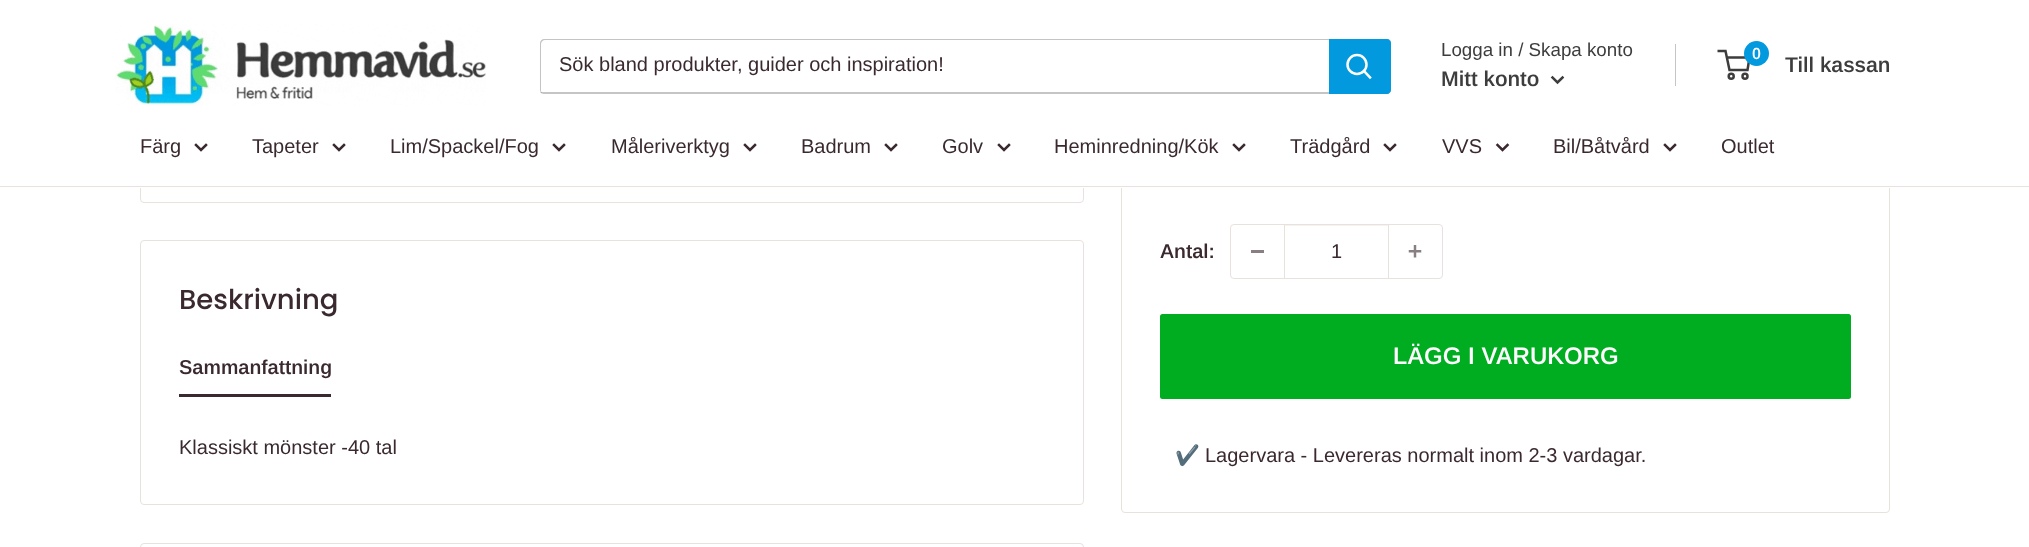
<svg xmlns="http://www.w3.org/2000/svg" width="2029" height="547">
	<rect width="100%" height="100%" fill="#FFFFFF" />
	<rect x="140.5" y="-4.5" width="943" height="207" rx="3.5" fill="none" stroke="#E7E2DE" />
	<rect x="1121.5" y="-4.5" width="768" height="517" rx="3.5" fill="none" stroke="#E7E2DE" />
	<rect x="140" y="0" width="1750" height="188" fill="#FFFFFF" />
	<image x="115" y="24" width="371" height="82" href="assets/img1.png" />
	<path d="M540 92C541 93 542 94 544 94H1387C1389 94 1391 92 1391 90V43C1391 42 1391 41 1390 40V81C1390 85 1392 92 1386 92Z" fill="#C5C5C5" />
	<path d="M545 40H1390C1389 39 1388 39 1387 39H544C542 39 540 41 540 43V90C540 91 541 93 542 93L541 91V44C541 42 543 40 545 40Z" fill="#3D3D3D" fill-opacity="0.3" />
	<text x="559" y="71" font-family="Arimo" font-size="20" fill="#3A2A2F">Sök bland produkter, guider och inspiration!</text>
	<path d="M1329 39H1387C1389 39 1391 41 1391 43V90C1391 92 1389 94 1387 94H1329Z" fill="#0299DE" />
	<path d="M1370 77.5L1364 71" fill="none" stroke="#FFFFFF" stroke-width="2.5" stroke-linecap="square" />
	<circle cx="1357" cy="64.5" r="9.5" fill="none" stroke="#FFFFFF" stroke-width="2.5" />
	<text x="1441" y="56" font-family="Arimo" font-size="18.75" fill="#3D3D3D">Logga in / Skapa konto</text>
	<rect x="1675" y="44" width="1" height="42" fill="#C5C5C5" />
	<text x="1441" y="86" font-family="Arimo" font-size="21.25" font-weight="600" fill="#3D3D3D">Mitt konto</text>
	<path d="M1562.5 77.5L1557.5 82.5L1552.5 77.5" fill="none" stroke="#3D3D3D" stroke-width="2.5" stroke-linecap="square" />
	<circle cx="1731.2" cy="76.2" r="2.5" fill="none" stroke="#3D3D3D" stroke-width="2.5" />
	<circle cx="1745" cy="76.2" r="2.5" fill="none" stroke="#3D3D3D" stroke-width="2.5" />
	<path d="M1726.5 57.5H1749.5L1747.5 70H1729.5L1725.5 51H1717.5" fill="none" stroke="#3D3D3D" stroke-width="2.5" />
	<circle cx="1756.5" cy="53.5" r="12.5" fill="#0299DE" />
	<text x="1752" y="59" font-family="Arimo" font-size="16" font-weight="600" fill="#FFFFFF">0</text>
	<text x="1785" y="72" font-family="Arimo" font-size="21.25" font-weight="600" fill="#3D3D3D">Till kassan</text>
	<rect x="0" y="186" width="2029" height="1" fill="#E7E2DE" />
	<text x="140" y="153" font-family="Arimo" font-size="20" fill="#3A2A2F">Färg</text>
	<path d="M206 145L201 150L196 145" fill="none" stroke="#3A2A2F" stroke-width="2.5" stroke-linecap="square" />
	<text x="252" y="153" font-family="Arimo" font-size="20" fill="#3A2A2F">Tapeter</text>
	<path d="M344 145L339 150L334 145" fill="none" stroke="#3A2A2F" stroke-width="2.5" stroke-linecap="square" />
	<text x="390" y="153" font-family="Arimo" font-size="20" fill="#3A2A2F">Lim/Spackel/Fog</text>
	<path d="M564 145L559 150L554 145" fill="none" stroke="#3A2A2F" stroke-width="2.5" stroke-linecap="square" />
	<text x="611" y="153" font-family="Arimo" font-size="20" fill="#3A2A2F">Måleriverktyg</text>
	<path d="M755 145L750 150L745 145" fill="none" stroke="#3A2A2F" stroke-width="2.5" stroke-linecap="square" />
	<text x="801" y="153" font-family="Arimo" font-size="20" fill="#3A2A2F">Badrum</text>
	<path d="M896 145L891 150L886 145" fill="none" stroke="#3A2A2F" stroke-width="2.5" stroke-linecap="square" />
	<text x="942" y="153" font-family="Arimo" font-size="20" fill="#3A2A2F">Golv</text>
	<path d="M1009 145L1004 150L999 145" fill="none" stroke="#3A2A2F" stroke-width="2.5" stroke-linecap="square" />
	<text x="1054" y="153" font-family="Arimo" font-size="20" fill="#3A2A2F">Heminredning/Kök</text>
	<path d="M1244 145L1239 150L1234 145" fill="none" stroke="#3A2A2F" stroke-width="2.5" stroke-linecap="square" />
	<text x="1290" y="153" font-family="Arimo" font-size="20" fill="#3A2A2F">Trädgård</text>
	<path d="M1395 145L1390 150L1385 145" fill="none" stroke="#3A2A2F" stroke-width="2.5" stroke-linecap="square" />
	<text x="1442" y="153" font-family="Arimo" font-size="20" fill="#3A2A2F">VVS</text>
	<path d="M1507.5 145L1502.5 150L1497.5 145" fill="none" stroke="#3A2A2F" stroke-width="2.5" stroke-linecap="square" />
	<text x="1553" y="153" font-family="Arimo" font-size="20" fill="#3A2A2F">Bil/Båtvård</text>
	<path d="M1675 145L1670 150L1665 145" fill="none" stroke="#3A2A2F" stroke-width="2.5" stroke-linecap="square" />
	<text x="1721" y="153" font-family="Arimo" font-size="20" fill="#3A2A2F">Outlet</text>
	<rect x="140.5" y="240.5" width="943" height="264" rx="3.5" fill="none" stroke="#E7E2DE" />
	<text x="179" y="309" font-family="Poppins" font-size="27.5" font-weight="500" fill="#3A2A2F">Beskrivning</text>
	<rect x="179" y="394" width="152" height="3" fill="#3A2A2F" />
	<text x="179" y="374" font-family="Arimo" font-size="20" font-weight="600" fill="#3A2A2F">Sammanfattning</text>
	<text x="179" y="454" font-family="Arimo" font-size="20" fill="#3A2A2F">Klassiskt mönster -40 tal</text>
	<text x="1160" y="258" font-family="Arimo" font-size="20" font-weight="600" fill="#3A2A2F">Antal:</text>
	<rect x="1230.5" y="224.5" width="212" height="54" rx="3.5" fill="none" stroke="#E7E2DE" />
	<rect x="1251" y="250" width="13" height="3" fill="#897F82" />
	<rect x="1285" y="225" width="103" height="1" fill="#F5F3F2" />
	<rect x="1388" y="225" width="1" height="53" fill="#E7E2DE" />
	<rect x="1284" y="225" width="1" height="53" fill="#E7E2DE" />
	<text x="1331" y="258" font-family="Arimo" font-size="20" fill="#3A2A2F">1</text>
	<image x="1408" y="245" width="14" height="13" href="assets/img2.png" />
	<rect x="1160" y="314" width="691" height="85" rx="2.5" fill="#00AD20" />
	<text x="1393" y="364" font-family="Arimo" font-size="24" font-weight="600" fill="#FFFFFF">LÄGG I VARUKORG</text>
	<text x="1175" y="462" font-family="Noto Color Emoji" font-size="20" fill="#3A2A2F">✔️</text>
	<text x="1205" y="462" font-family="Arimo" font-size="20" fill="#3A2A2F">Lagervara - Levereras normalt inom 2-3 vardagar.</text>
	<rect x="140.5" y="543.5" width="943" height="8" rx="3.5" fill="none" stroke="#E7E2DE" />
</svg>
